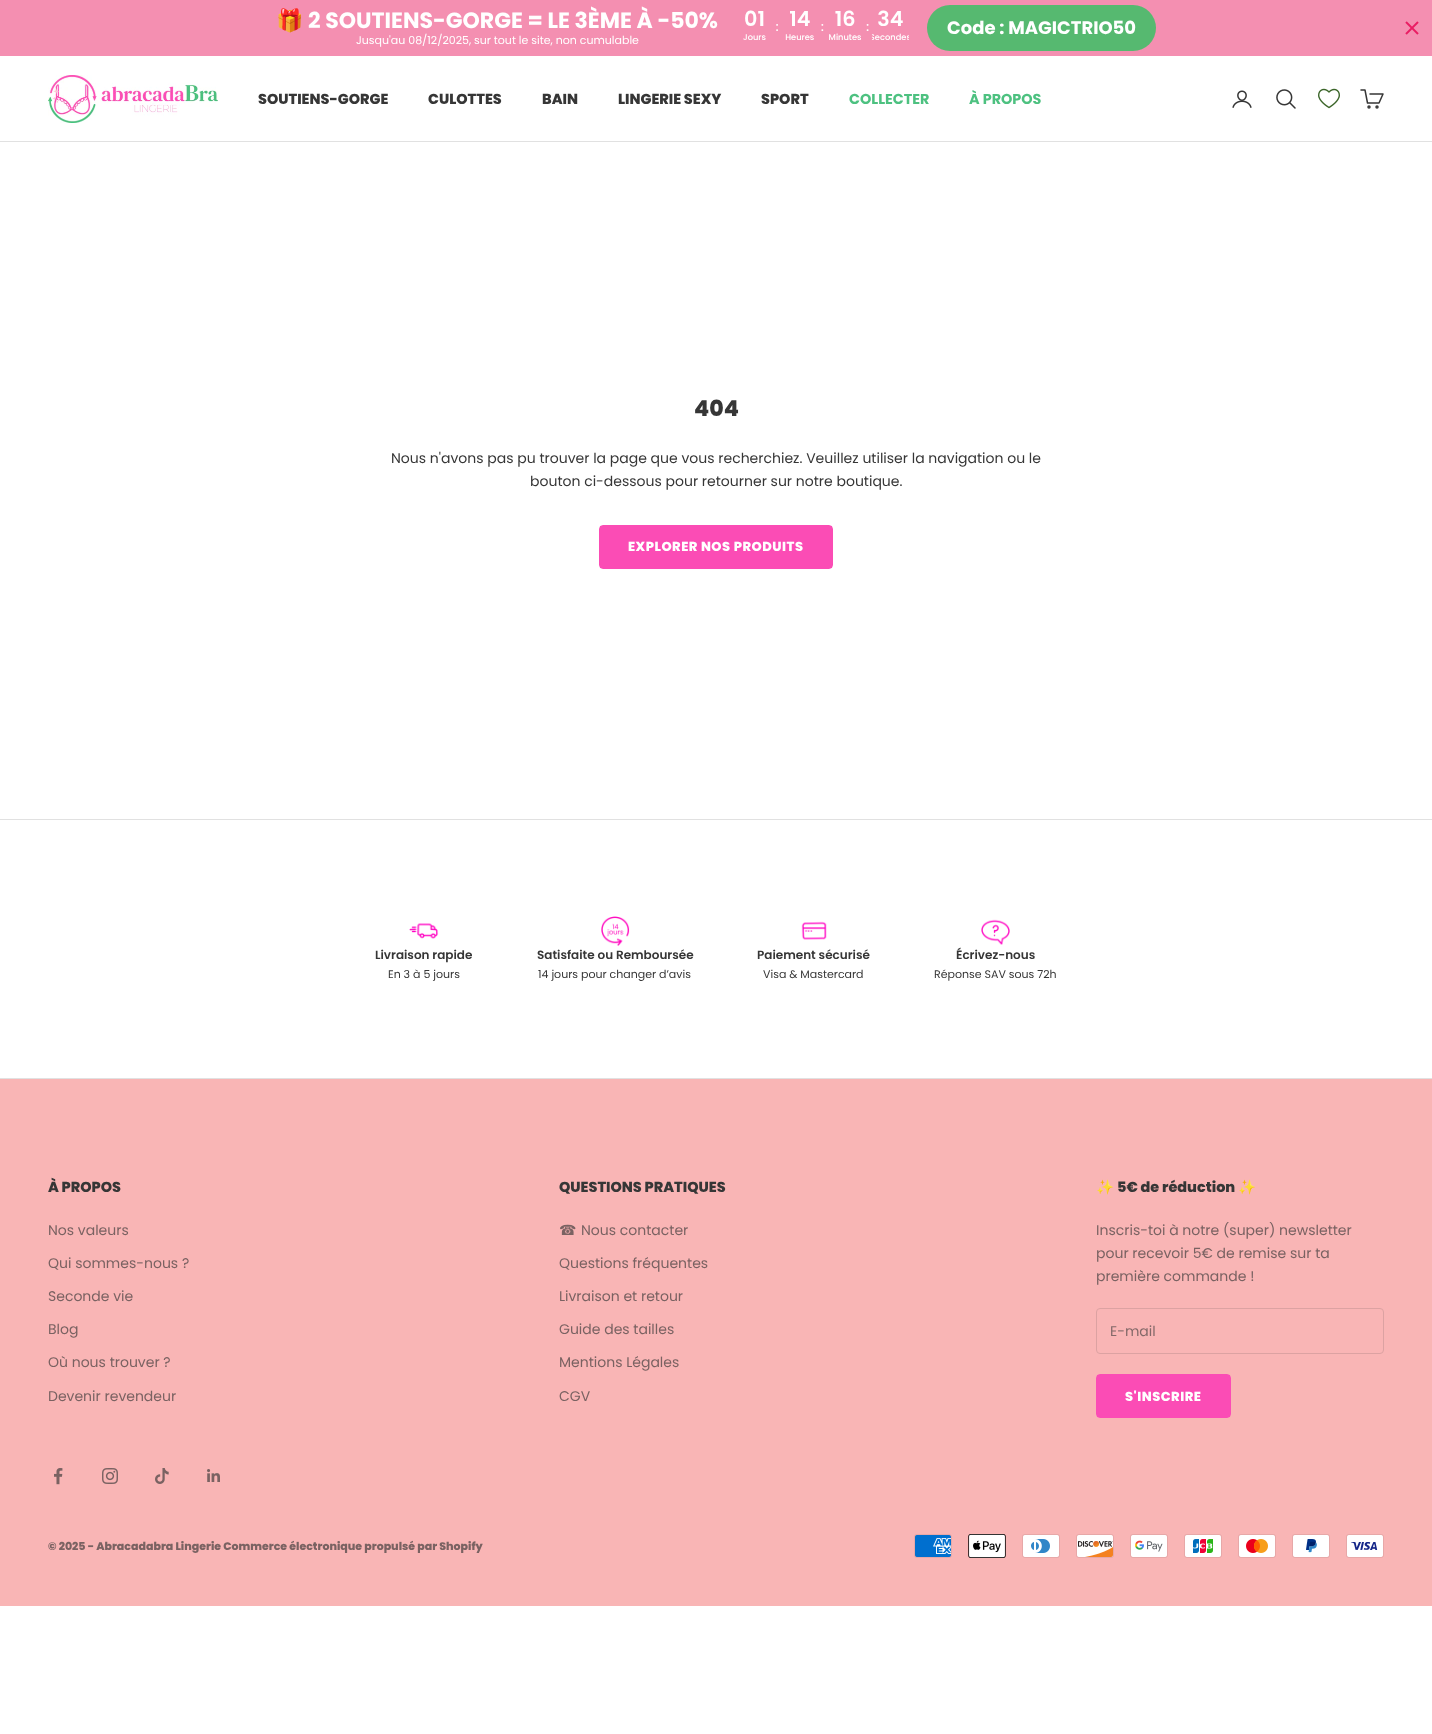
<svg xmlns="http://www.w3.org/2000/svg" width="1432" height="1734">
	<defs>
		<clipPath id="clip1"><rect x="599" y="525" width="234" height="44" rx="4" /></clipPath>
		<clipPath id="clip2"><rect x="1096" y="1374" width="135" height="44" rx="4" /></clipPath>
	</defs>
	<rect width="100%" height="100%" fill="#FFFFFF" />
	<rect x="0" y="0" width="1432" height="56" fill="#F48FB1" />
	<text x="276" y="28" font-family="Noto Color Emoji" font-size="22" font-weight="700" fill="#FFFFFF">🎁</text>
	<text x="308" y="28" font-family="Poppins" font-size="22" font-weight="700" fill="#FFFFFF">2 SOUTIENS-GORGE = LE 3ÈME À -50%</text>
	<text x="356" y="44" font-family="Poppins" font-size="11" fill="#FFFFFF">Jusqu'au 08/12/2025, sur tout le site, non cumulable</text>
	<image x="743" y="10" width="166" height="30" href="assets/img1.png" />
	<rect x="927" y="5" width="229" height="46" rx="23" fill="#56B970" />
	<text x="947" y="34" font-family="Poppins" font-size="18" font-weight="700" fill="#FFFFFF">Code : MAGICTRIO50</text>
	<image x="1405" y="21" width="14" height="14" href="assets/img2.png" />
	<rect x="0" y="141" width="1432" height="1" fill="#E1E1E1" />
	<image x="48" y="75" width="170" height="48" href="assets/img3.png" />
	<g font-family="Poppins" font-size="14.4" font-weight="800" fill="#363636">
		<text x="258" y="104">SOUTIENS-GORGE</text>
		<text x="428" y="104">CULOTTES</text>
		<text x="542" y="104">BAIN</text>
		<text x="618" y="104">LINGERIE SEXY</text>
		<text x="761" y="104">SPORT</text>
	</g>
	<g font-family="Poppins" font-size="14.4" font-weight="700" fill="#4DC180">
		<text x="849" y="104">COLLECTER</text>
		<text x="969" y="104">À PROPOS</text>
	</g>
	<image x="1232" y="90" width="20" height="18" href="assets/img4.png" />
	<image x="1276" y="89" width="20" height="20" href="assets/img5.png" />
	<image x="1318" y="88" width="22" height="21" href="assets/img6.png" />
	<path d="M1370 94H1383L1379 103H1367.5L1365 90H1361" fill="none" stroke="#363636" stroke-width="1.5" stroke-linecap="round" stroke-linejoin="round" />
	<circle cx="1369" cy="107" r="1" fill="none" stroke="#363636" stroke-width="1.5" />
	<circle cx="1377" cy="107" r="1" fill="none" stroke="#363636" stroke-width="1.5" />
	<text x="694" y="416" font-family="Poppins" font-size="22" font-weight="800" fill="#363636">404</text>
	<g font-family="Poppins" font-size="14" fill="#363636">
		<text x="391" y="463">Nous n'avons pas pu trouver la page que vous recherchiez. Veuillez utiliser la navigation ou le</text>
		<text x="530" y="486">bouton ci-dessous pour retourner sur notre boutique.</text>
	</g>
	<g clip-path="url(#clip1)">
		<rect x="600" y="526" width="232" height="42" fill="#FB4CB5" />
	</g>
	<rect x="599.5" y="525.5" width="233" height="43" rx="3.5" fill="none" stroke="#FB4CB5" />
	<text x="628" y="551" font-family="Poppins" font-size="13" font-weight="800" letter-spacing="0.5" fill="#FFFFFF">EXPLORER NOS PRODUITS</text>
	<rect x="0" y="819" width="1432" height="1" fill="#E1E1E1" />
	<image x="409" y="923" width="30" height="16" href="assets/img7.png" />
	<text x="375" y="959" font-family="Poppins" font-size="12" font-weight="600" fill="#363636">Livraison rapide</text>
	<text x="388" y="978" font-family="Poppins" font-size="11" fill="#363636">En 3 à 5 jours</text>
	<image x="601" y="916" width="29" height="30" href="assets/img8.png" />
	<text x="537" y="959" font-family="Poppins" font-size="12" font-weight="600" fill="#363636">Satisfaite ou Remboursée</text>
	<text x="538" y="978" font-family="Poppins" font-size="11" fill="#363636">14 jours pour changer d’avis</text>
	<image x="801" y="921" width="26" height="19" href="assets/img9.png" />
	<text x="757" y="959" font-family="Poppins" font-size="12" font-weight="600" fill="#363636">Paiement sécurisé</text>
	<text x="763" y="978" font-family="Poppins" font-size="11" fill="#363636">Visa &amp; Mastercard</text>
	<image x="981" y="919" width="29" height="26" href="assets/img10.png" />
	<text x="956" y="959" font-family="Poppins" font-size="12" font-weight="600" fill="#363636">Écrivez-nous</text>
	<text x="934" y="978" font-family="Poppins" font-size="11" fill="#363636">Réponse SAV sous 72h</text>
	<rect x="0" y="1078" width="1432" height="1" fill="#E1E1E1" />
	<rect x="0" y="1079" width="1432" height="527" fill="#F9B5B5" />
	<text x="48" y="1192" font-family="Poppins" font-size="14.4" font-weight="800" fill="#363636">À PROPOS</text>
	<g font-family="Poppins" font-size="14" fill="#7A6262">
		<text x="48" y="1235">Nos valeurs</text>
		<text x="48" y="1268">Qui sommes-nous ?</text>
		<text x="48" y="1301">Seconde vie</text>
		<text x="48" y="1334">Blog</text>
		<text x="48" y="1367">Où nous trouver ?</text>
		<text x="48" y="1401">Devenir revendeur</text>
	</g>
	<text x="559" y="1192" font-family="Poppins" font-size="14.4" font-weight="800" fill="#363636">QUESTIONS PRATIQUES</text>
	<text x="559" y="1235" font-family="DejaVu Sans" font-size="14" fill="#7A6262">☎</text>
	<g font-family="Poppins" font-size="14" fill="#7A6262">
		<text x="581" y="1235">Nous contacter</text>
		<text x="559" y="1268">Questions fréquentes</text>
		<text x="559" y="1301">Livraison et retour</text>
		<text x="559" y="1334">Guide des tailles</text>
		<text x="559" y="1367">Mentions Légales</text>
		<text x="559" y="1401">CGV</text>
	</g>
	<text x="1096" y="1192" font-family="Noto Color Emoji" font-size="14.4" font-weight="700" fill="#363636">✨</text>
	<text x="1117" y="1192" font-family="Poppins" font-size="14.4" font-weight="800" fill="#363636">5€ de réduction</text>
	<text x="1238" y="1192" font-family="Noto Color Emoji" font-size="14.4" font-weight="700" fill="#363636">✨</text>
	<g font-family="Poppins" font-size="14" fill="#7A6262">
		<text x="1096" y="1235">Inscris-toi à notre (super) newsletter</text>
		<text x="1096" y="1258">pour recevoir 5€ de remise sur ta</text>
		<text x="1096" y="1281">première commande !</text>
	</g>
	<rect x="1096.5" y="1308.5" width="287" height="45" rx="3.5" fill="none" stroke="#DCA2A2" />
	<text x="1110" y="1336" font-family="Poppins" font-size="14" fill="#846969">E-mail</text>
	<g clip-path="url(#clip2)">
		<rect x="1097" y="1375" width="133" height="42" fill="#FB4CB5" />
	</g>
	<rect x="1096.5" y="1374.5" width="134" height="43" rx="3.5" fill="none" stroke="#FB4CB5" />
	<text x="1125" y="1401" font-family="Poppins" font-size="13" font-weight="800" letter-spacing="0.5" fill="#FFFFFF">S'INSCRIRE</text>
	<image x="54" y="1468" width="9" height="17" href="assets/img11.png" />
	<image x="102" y="1468" width="16" height="16" href="assets/img12.png" />
	<image x="155" y="1468" width="14" height="16" href="assets/img13.png" />
	<image x="207" y="1469" width="13" height="13" href="assets/img14.png" />
	<text x="48" y="1550" font-family="Poppins" font-size="11" font-weight="800" fill="#7A6262">© 2025 - Abracadabra Lingerie Commerce électronique propulsé par Shopify</text>
	<image x="914" y="1534" width="38" height="24" href="assets/img15.png" />
	<image x="968" y="1534" width="38" height="24" href="assets/img16.png" />
	<image x="1022" y="1534" width="38" height="24" href="assets/img17.png" />
	<image x="1076" y="1534" width="38" height="24" href="assets/img18.png" />
	<image x="1130" y="1534" width="38" height="24" href="assets/img19.png" />
	<image x="1184" y="1534" width="38" height="24" href="assets/img20.png" />
	<image x="1238" y="1534" width="38" height="24" href="assets/img21.png" />
	<image x="1292" y="1534" width="38" height="24" href="assets/img22.png" />
	<image x="1346" y="1534" width="38" height="24" href="assets/img23.png" />
</svg>
